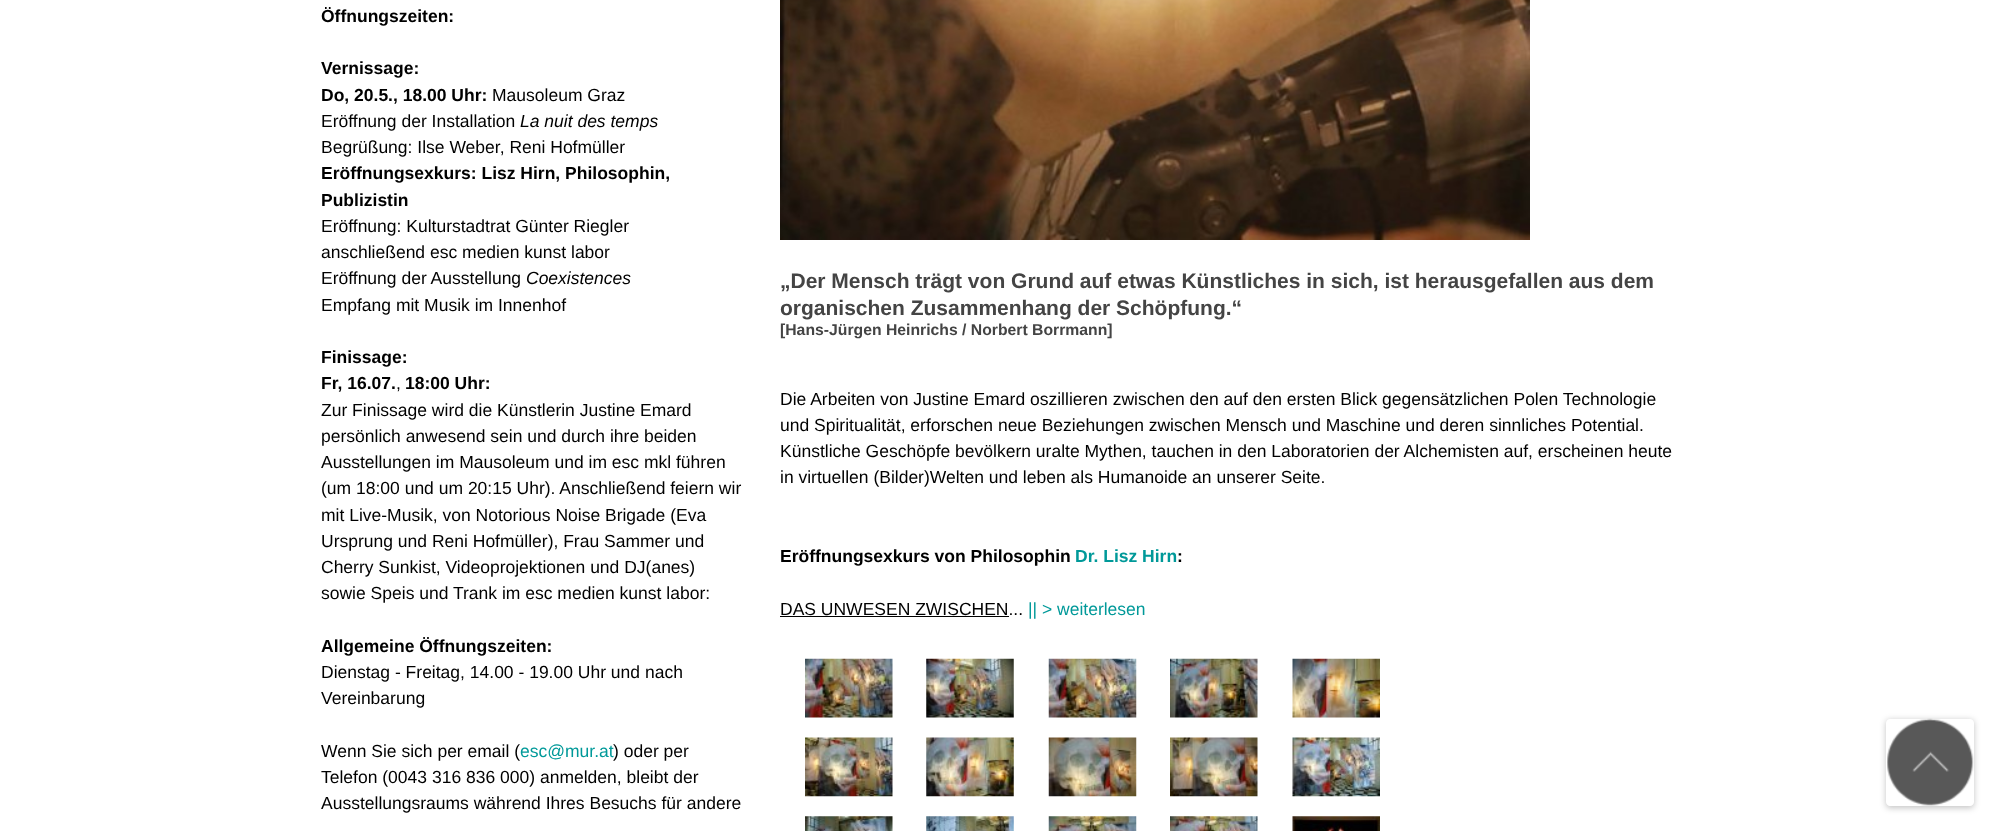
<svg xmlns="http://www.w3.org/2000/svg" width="1998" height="831">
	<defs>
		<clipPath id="clip1"><path d="M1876 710H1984V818H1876ZM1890 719H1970C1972 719 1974 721 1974 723V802C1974 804 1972 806 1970 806H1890C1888 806 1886 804 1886 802V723C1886 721 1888 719 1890 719Z" clip-rule="evenodd" /></clipPath>
	</defs>
	<rect width="100%" height="100%" fill="#FFFFFF" />
	<g font-family="Liberation Sans" font-size="17.5" font-weight="700" fill="#000000">
		<text x="321" y="22">Öffnungszeiten:</text>
		<text x="321" y="74">Vernissage:</text>
		<text x="321" y="101">Do, 20.5., 18.00 Uhr:</text>
	</g>
	<g font-family="Liberation Sans" font-size="17.5" fill="#000000">
		<text x="492" y="101">Mausoleum Graz</text>
		<text x="321" y="127">Eröffnung der Installation</text>
	</g>
	<text x="520" y="127" font-family="Liberation Sans" font-size="17.5" font-style="italic" fill="#000000">La nuit des temps</text>
	<text x="321" y="153" font-family="Liberation Sans" font-size="17.5" fill="#000000">Begrüßung: Ilse Weber, Reni Hofmüller</text>
	<g font-family="Liberation Sans" font-size="17.5" font-weight="700" fill="#000000">
		<text x="321" y="179">Eröffnungsexkurs: Lisz Hirn, Philosophin,</text>
		<text x="321" y="206">Publizistin</text>
	</g>
	<g font-family="Liberation Sans" font-size="17.5" fill="#000000">
		<text x="321" y="232">Eröffnung: Kulturstadtrat Günter Riegler</text>
		<text x="321" y="258">anschließend esc medien kunst labor</text>
		<text x="321" y="284">Eröffnung der Ausstellung</text>
	</g>
	<text x="526" y="284" font-family="Liberation Sans" font-size="17.5" font-style="italic" fill="#000000">Coexistences</text>
	<text x="321" y="311" font-family="Liberation Sans" font-size="17.5" fill="#000000">Empfang mit Musik im Innenhof</text>
	<g font-family="Liberation Sans" font-size="17.5" font-weight="700" fill="#000000">
		<text x="321" y="363">Finissage:</text>
		<text x="321" y="389">Fr, 16.07.</text>
	</g>
	<text x="396" y="389" font-family="Liberation Sans" font-size="17.5" fill="#000000">,</text>
	<text x="405" y="389" font-family="Liberation Sans" font-size="17.5" font-weight="700" fill="#000000">18:00 Uhr:</text>
	<g font-family="Liberation Sans" font-size="17.5" fill="#000000">
		<text x="321" y="416">Zur Finissage wird die Künstlerin Justine Emard</text>
		<text x="321" y="442">persönlich anwesend sein und durch ihre beiden</text>
		<text x="321" y="468">Ausstellungen im Mausoleum und im esc mkl führen</text>
		<text x="321" y="494">(um 18:00 und um 20:15 Uhr). Anschließend feiern wir</text>
		<text x="321" y="521">mit Live-Musik, von Notorious Noise Brigade (Eva</text>
		<text x="321" y="547">Ursprung und Reni Hofmüller), Frau Sammer und</text>
		<text x="321" y="573">Cherry Sunkist, Videoprojektionen und DJ(anes)</text>
		<text x="321" y="599">sowie Speis und Trank im esc medien kunst labor:</text>
	</g>
	<text x="321" y="652" font-family="Liberation Sans" font-size="17.5" font-weight="700" fill="#000000">Allgemeine Öffnungszeiten:</text>
	<g font-family="Liberation Sans" font-size="17.5" fill="#000000">
		<text x="321" y="678">Dienstag - Freitag, 14.00 - 19.00 Uhr und nach</text>
		<text x="321" y="704">Vereinbarung</text>
		<text x="321" y="757">Wenn Sie sich per email (</text>
	</g>
	<text x="520" y="757" font-family="Liberation Sans" font-size="17.5" fill="#009999">esc@mur.at</text>
	<g font-family="Liberation Sans" font-size="17.5" fill="#000000">
		<text x="613" y="757">) oder per</text>
		<text x="321" y="783">Telefon (0043 316 836 000) anmelden, bleibt der</text>
		<text x="321" y="809">Ausstellungsraums während Ihres Besuchs für andere</text>
	</g>
	<image x="780" y="0" width="750" height="240" href="assets/img1.png" />
	<g font-family="Liberation Sans" font-size="21" font-weight="700" fill="#444444">
		<text x="780" y="288">„Der Mensch trägt von Grund auf etwas Künstliches in sich, ist herausgefallen aus dem</text>
		<text x="780" y="315">organischen Zusammenhang der Schöpfung.“</text>
	</g>
	<text x="780" y="335" font-family="Liberation Sans" font-size="15.75" font-weight="700" fill="#444444">[Hans-Jürgen Heinrichs / Norbert Borrmann]</text>
	<g font-family="Liberation Sans" font-size="17.5" fill="#000000">
		<text x="780" y="405">Die Arbeiten von Justine Emard oszillieren zwischen den auf den ersten Blick gegensätzlichen Polen Technologie</text>
		<text x="780" y="431">und Spiritualität, erforschen neue Beziehungen zwischen Mensch und Maschine und deren sinnliches Potential.</text>
		<text x="780" y="457">Künstliche Geschöpfe bevölkern uralte Mythen, tauchen in den Laboratorien der Alchemisten auf, erscheinen heute</text>
		<text x="780" y="483">in virtuellen (Bilder)Welten und leben als Humanoide an unserer Seite.</text>
	</g>
	<text x="780" y="562" font-family="Liberation Sans" font-size="17.5" font-weight="700" fill="#000000">Eröffnungsexkurs von Philosophin</text>
	<text x="1075" y="562" font-family="Liberation Sans" font-size="17.5" font-weight="700" fill="#009999">Dr. Lisz Hirn</text>
	<text x="1177" y="562" font-family="Liberation Sans" font-size="17.5" font-weight="700" fill="#000000">:</text>
	<text x="780" y="615" font-family="Liberation Sans" font-size="17.5" fill="#000000">DAS UNWESEN ZWISCHEN...</text>
	<rect x="780" y="616" width="229" height="1" fill="#000000" />
	<text x="1028" y="615" font-family="Liberation Sans" font-size="17.5" fill="#009999">|| &gt; weiterlesen</text>
	<image x="805" y="658" width="88" height="60" href="assets/img2.png" />
	<image x="926" y="658" width="88" height="60" href="assets/img3.png" />
	<image x="1048" y="658" width="89" height="60" href="assets/img4.png" />
	<image x="1170" y="658" width="88" height="60" href="assets/img5.png" />
	<image x="1292" y="658" width="88" height="60" href="assets/img6.png" />
	<image x="805" y="737" width="88" height="60" href="assets/img7.png" />
	<image x="926" y="737" width="88" height="60" href="assets/img8.png" />
	<image x="1048" y="737" width="89" height="60" href="assets/img9.png" />
	<image x="1170" y="737" width="88" height="60" href="assets/img10.png" />
	<image x="1292" y="737" width="88" height="60" href="assets/img11.png" />
	<image x="805" y="816" width="88" height="15" href="assets/img12.png" />
	<image x="926" y="816" width="88" height="15" href="assets/img13.png" />
	<image x="1048" y="816" width="89" height="15" href="assets/img14.png" />
	<image x="1170" y="816" width="88" height="15" href="assets/img15.png" />
	<image x="1292" y="816" width="88" height="15" href="assets/img16.png" />
	<g clip-path="url(#clip1)">
		<rect x="1886" y="720" width="88" height="88" rx="4" fill="#000000" fill-opacity="0.23" filter="blur(3px)" />
	</g>
	<image x="1887" y="718" width="87" height="88" href="assets/img17.png" />
</svg>
